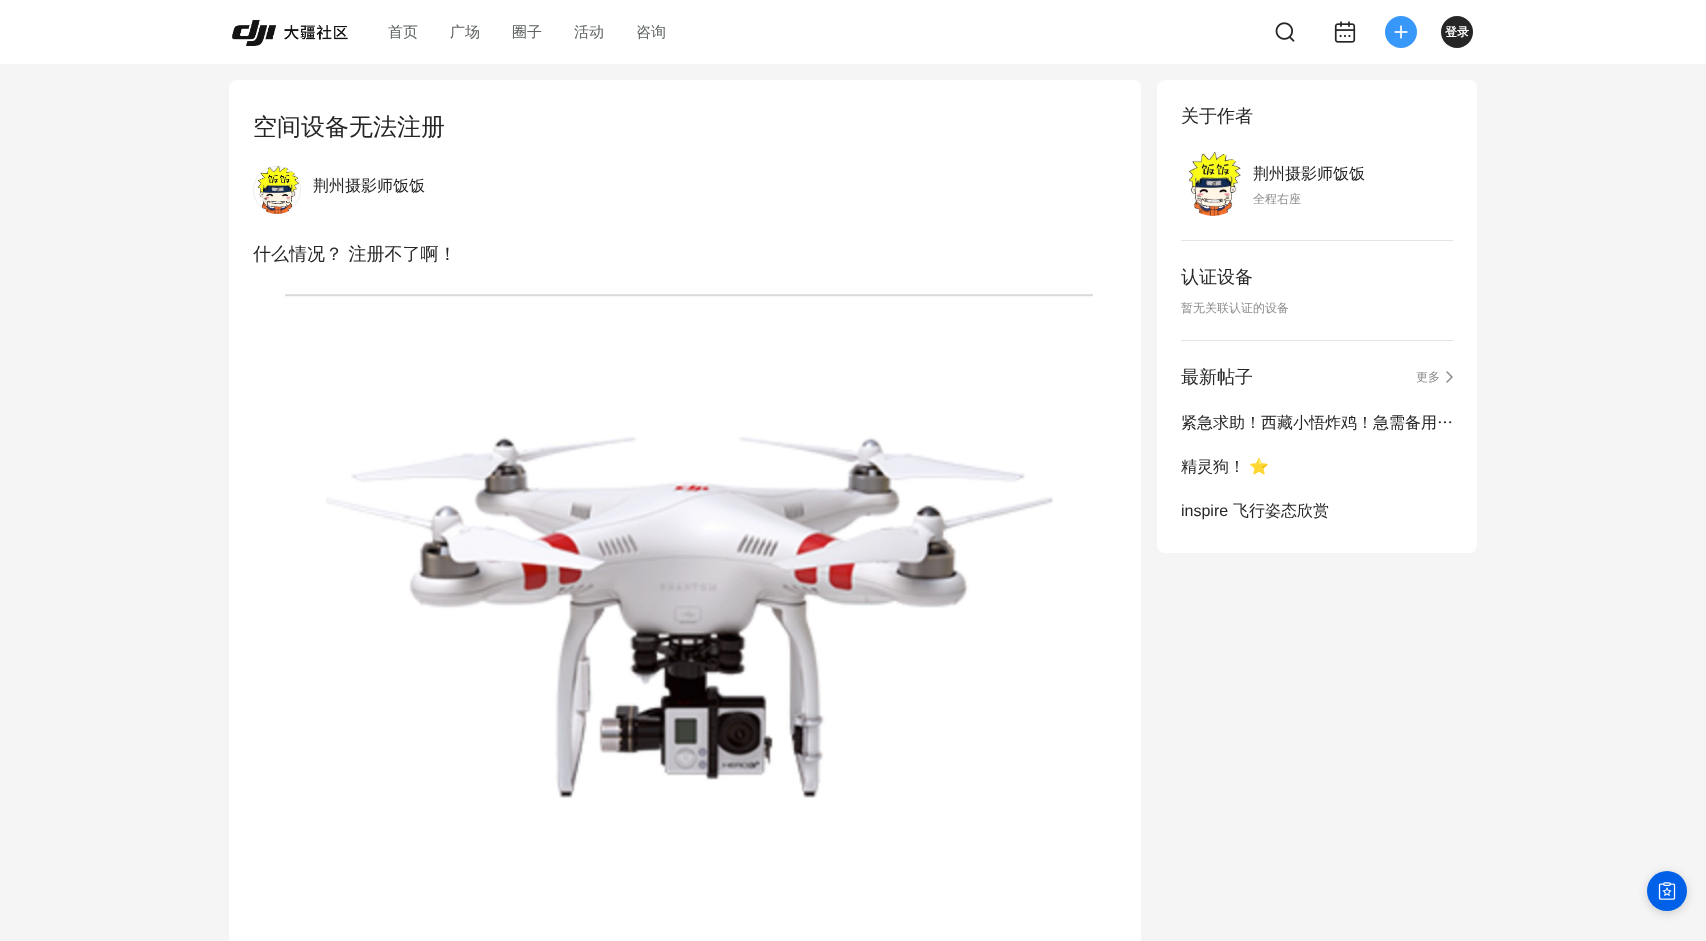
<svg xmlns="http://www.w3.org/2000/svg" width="1706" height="941">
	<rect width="100%" height="100%" fill="#F5F5F5" />
	<rect x="0" y="0" width="1706" height="64" fill="#FFFFFF" />
	<image x="232" y="19" width="116" height="27" href="assets/img1.png" />
	<g font-family="WenQuanYi Zen Hei" font-size="15" font-weight="500" fill="#5E6262">
		<text x="388" y="37">首页</text>
		<text x="450" y="37">广场</text>
		<text x="512" y="37">圈子</text>
		<text x="574" y="37">活动</text>
		<text x="636" y="37">咨询</text>
	</g>
	<image x="1275" y="22" width="20" height="20" href="assets/img2.png" />
	<image x="1334" y="21" width="22" height="22" href="assets/img3.png" />
	<circle cx="1401" cy="32" r="16" fill="#3798FA" />
	<image x="1394" y="25" width="14" height="14" href="assets/img4.png" />
	<circle cx="1457" cy="32" r="16" fill="#262626" />
	<text x="1445" y="36" font-family="WenQuanYi Zen Hei" font-size="12" font-weight="700" fill="#FFFFFF">登录</text>
	<path d="M237 80H1133C1137.5 80 1141 83.5 1141 88V941H229V88C229 83.5 232.5 80 237 80Z" fill="#FFFFFF" />
	<text x="253" y="135" font-family="WenQuanYi Zen Hei" font-size="24" font-weight="500" fill="#262626">空间设备无法注册</text>
	<image x="257" y="166" width="43" height="48" href="assets/img5.png" />
	<circle cx="277" cy="190" r="23.5" fill="none" stroke="#000000" stroke-opacity="0.08" />
	<text x="313" y="191" font-family="WenQuanYi Zen Hei" font-size="16" font-weight="500" fill="#262626">荆州摄影师饭饭</text>
	<text x="253" y="260" font-family="WenQuanYi Zen Hei" font-size="18" font-weight="500" fill="#262626">什么情况？ 注册不了啊！</text>
	<image x="285" y="294" width="808" height="504" href="assets/img6.png" />
	<rect x="1157" y="80" width="320" height="473" rx="8" fill="#FFFFFF" />
	<text x="1181" y="122" font-family="WenQuanYi Zen Hei" font-size="18" font-weight="500" fill="#262626">关于作者</text>
	<image x="1188" y="152" width="53" height="64" href="assets/img7.png" />
	<text x="1253" y="179" font-family="WenQuanYi Zen Hei" font-size="16" font-weight="500" fill="#262626">荆州摄影师饭饭</text>
	<text x="1253" y="203" font-family="WenQuanYi Zen Hei" font-size="12" font-weight="500" fill="#8C8C8C">全程右座</text>
	<rect x="1181" y="240" width="272" height="1" fill="#E4E4E4" />
	<text x="1181" y="283" font-family="WenQuanYi Zen Hei" font-size="18" font-weight="500" fill="#262626">认证设备</text>
	<text x="1181" y="312" font-family="WenQuanYi Zen Hei" font-size="12" font-weight="500" fill="#8C8C8C">暂无关联认证的设备</text>
	<rect x="1181" y="340" width="272" height="1" fill="#E4E4E4" />
	<text x="1181" y="383" font-family="WenQuanYi Zen Hei" font-size="18" font-weight="500" fill="#262626">最新帖子</text>
	<text x="1416" y="381" font-family="WenQuanYi Zen Hei" font-size="12" font-weight="500" fill="#8C8C8C">更多</text>
	<image x="1446" y="371" width="7" height="12" href="assets/img8.png" />
	<g font-family="WenQuanYi Zen Hei" font-size="16" font-weight="500" fill="#262626">
		<text x="1181" y="428">紧急求助！西藏小悟炸鸡！急需备用…</text>
		<text x="1181" y="472">精灵狗！</text>
	</g>
	<text x="1249" y="472" font-family="Noto Color Emoji" font-size="16" fill="#262626">⭐️</text>
	<text x="1181" y="516" font-family="Liberation Sans" font-size="16" fill="#262626">inspire</text>
	<text x="1233" y="516" font-family="WenQuanYi Zen Hei" font-size="16" font-weight="500" fill="#262626">飞行姿态欣赏</text>
	<rect x="1647" y="873" width="40" height="40" rx="20" fill="#000000" fill-opacity="0.16" filter="blur(5px)" />
	<circle cx="1667" cy="891" r="20" fill="#0060E7" />
	<image x="1658" y="882" width="18" height="18" href="assets/img9.png" />
</svg>
